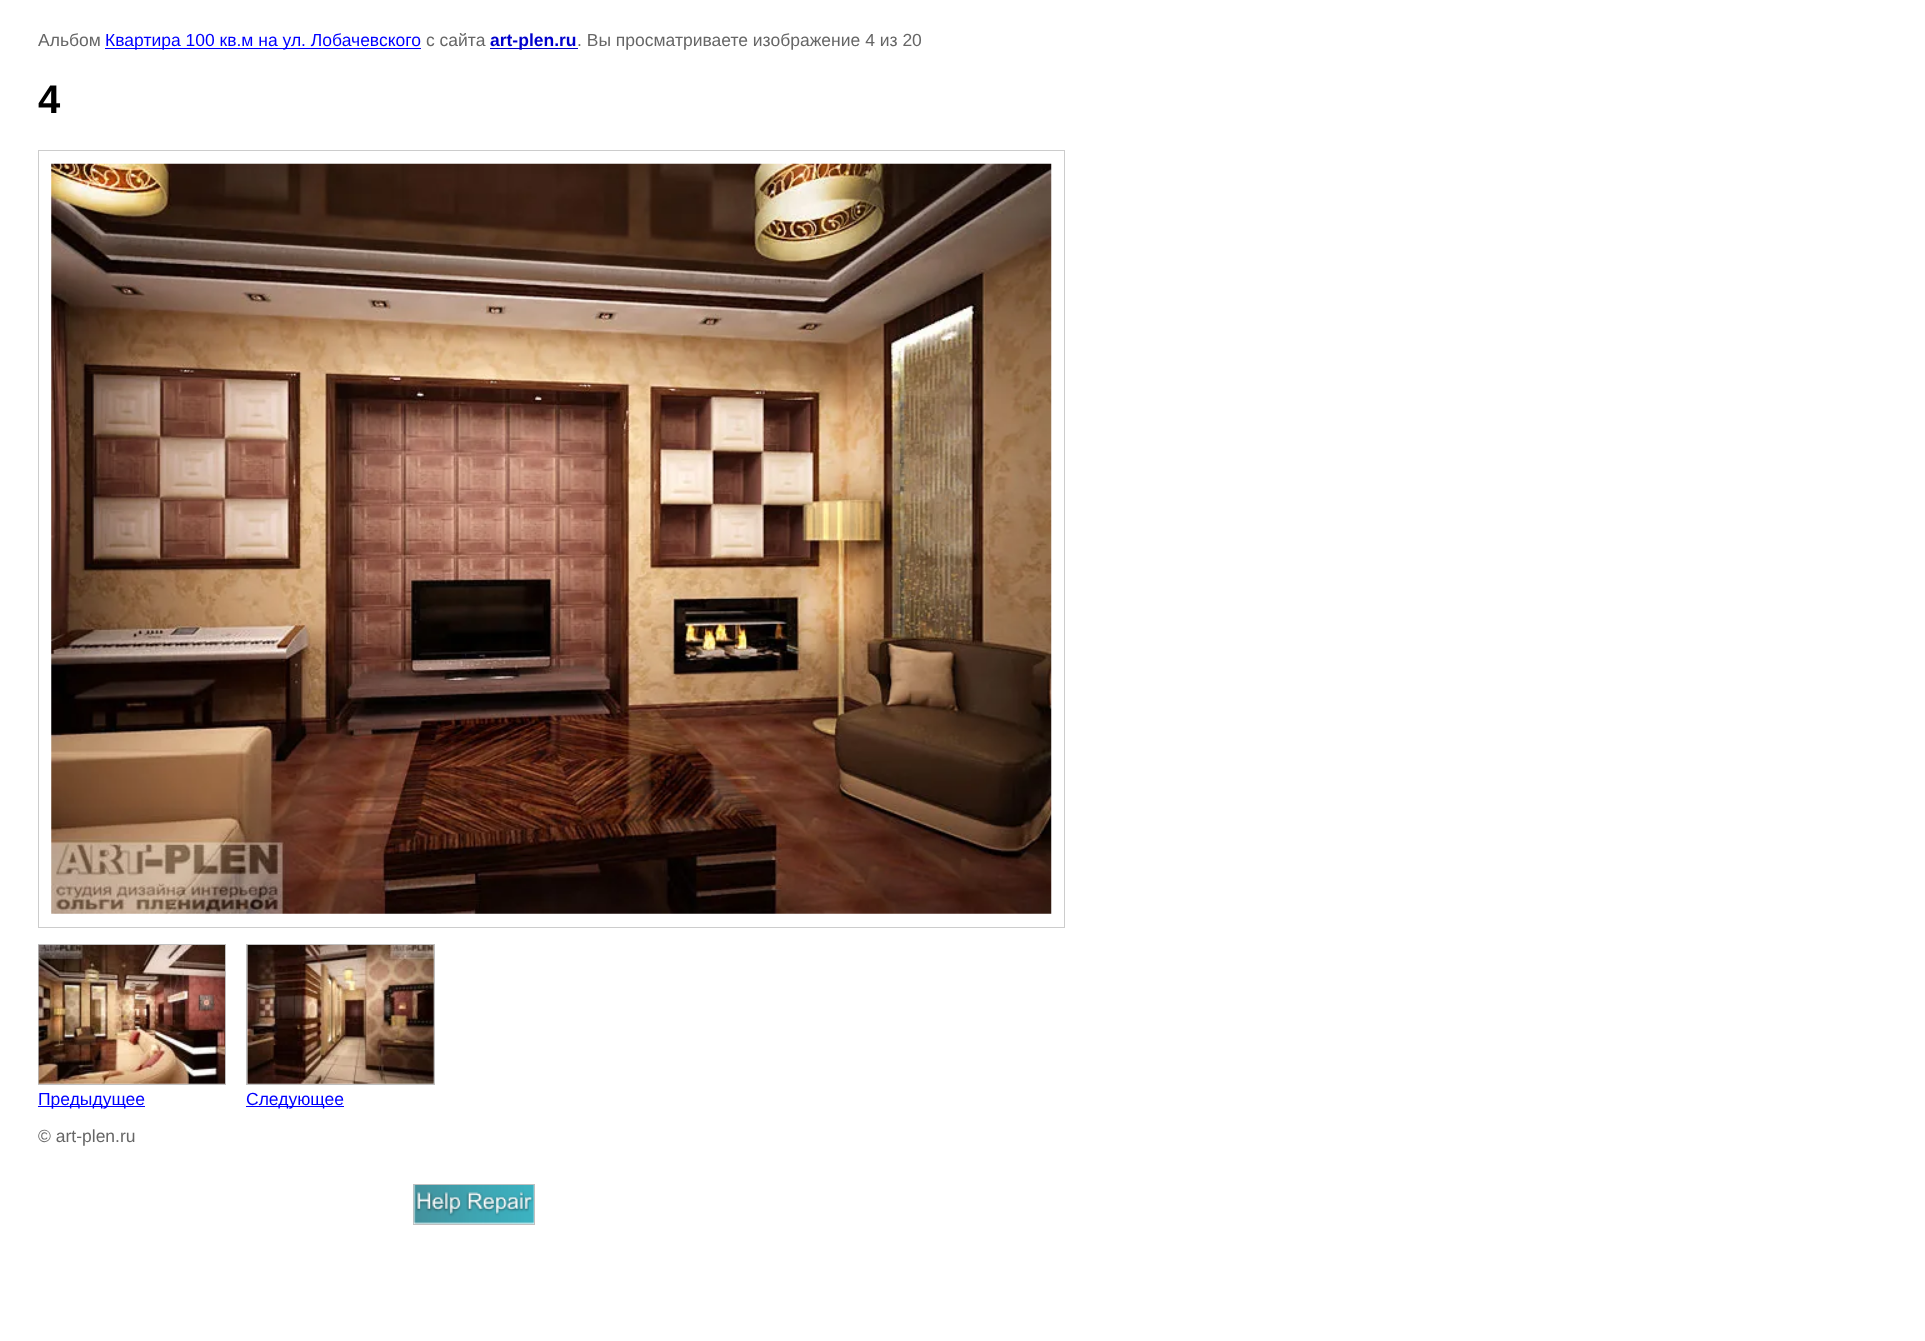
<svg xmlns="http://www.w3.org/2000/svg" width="1925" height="1341">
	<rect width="100%" height="100%" fill="#FFFFFF" />
	<text x="38" y="46" font-family="Liberation Sans" font-size="17.5" fill="#666666">Альбом</text>
	<rect x="105" y="48" width="316" height="1" fill="#0000FF" />
	<text x="105" y="46" font-family="Liberation Sans" font-size="17.5" fill="#0000FF">Квартира 100 кв.м на ул. Лобачевского</text>
	<text x="426" y="46" font-family="Liberation Sans" font-size="17.5" fill="#666666">с сайта</text>
	<rect x="490" y="48" width="88" height="1" fill="#0000CC" />
	<text x="490" y="46" font-family="Liberation Sans" font-size="17.5" font-weight="700" fill="#0000CC">art-plen.ru</text>
	<text x="577" y="46" font-family="Liberation Sans" font-size="17.5" fill="#666666">. Вы просматриваете изображение 4 из 20</text>
	<text x="38" y="113" font-family="Liberation Sans" font-size="40" font-weight="700" fill="#000000">4</text>
	<rect x="38.5" y="150.5" width="1026" height="777" fill="none" stroke="#CCCCCC" />
	<image x="51" y="163" width="1001" height="751" href="assets/img1.png" />
	<rect x="38.5" y="944.5" width="187" height="140" fill="none" stroke="#C0C0C0" />
	<image x="38" y="945" width="187" height="139" href="assets/img2.png" />
	<rect x="38" y="1106" width="107" height="1" fill="#0000FF" />
	<text x="38" y="1105" font-family="Liberation Sans" font-size="17.5" fill="#0000FF">Предыдущее</text>
	<rect x="246.5" y="944.5" width="188" height="140" fill="none" stroke="#C0C0C0" />
	<image x="247" y="945" width="187" height="139" href="assets/img3.png" />
	<rect x="246" y="1106" width="98" height="1" fill="#0000FF" />
	<text x="246" y="1105" font-family="Liberation Sans" font-size="17.5" fill="#0000FF">Следующее</text>
	<text x="38" y="1142" font-family="Liberation Sans" font-size="17.5" fill="#666666">© art-plen.ru</text>
	<rect x="413.5" y="1184.5" width="121" height="40" fill="none" stroke="#C0C0C0" />
	<image x="413" y="1185" width="121" height="39" href="assets/img4.png" />
</svg>
